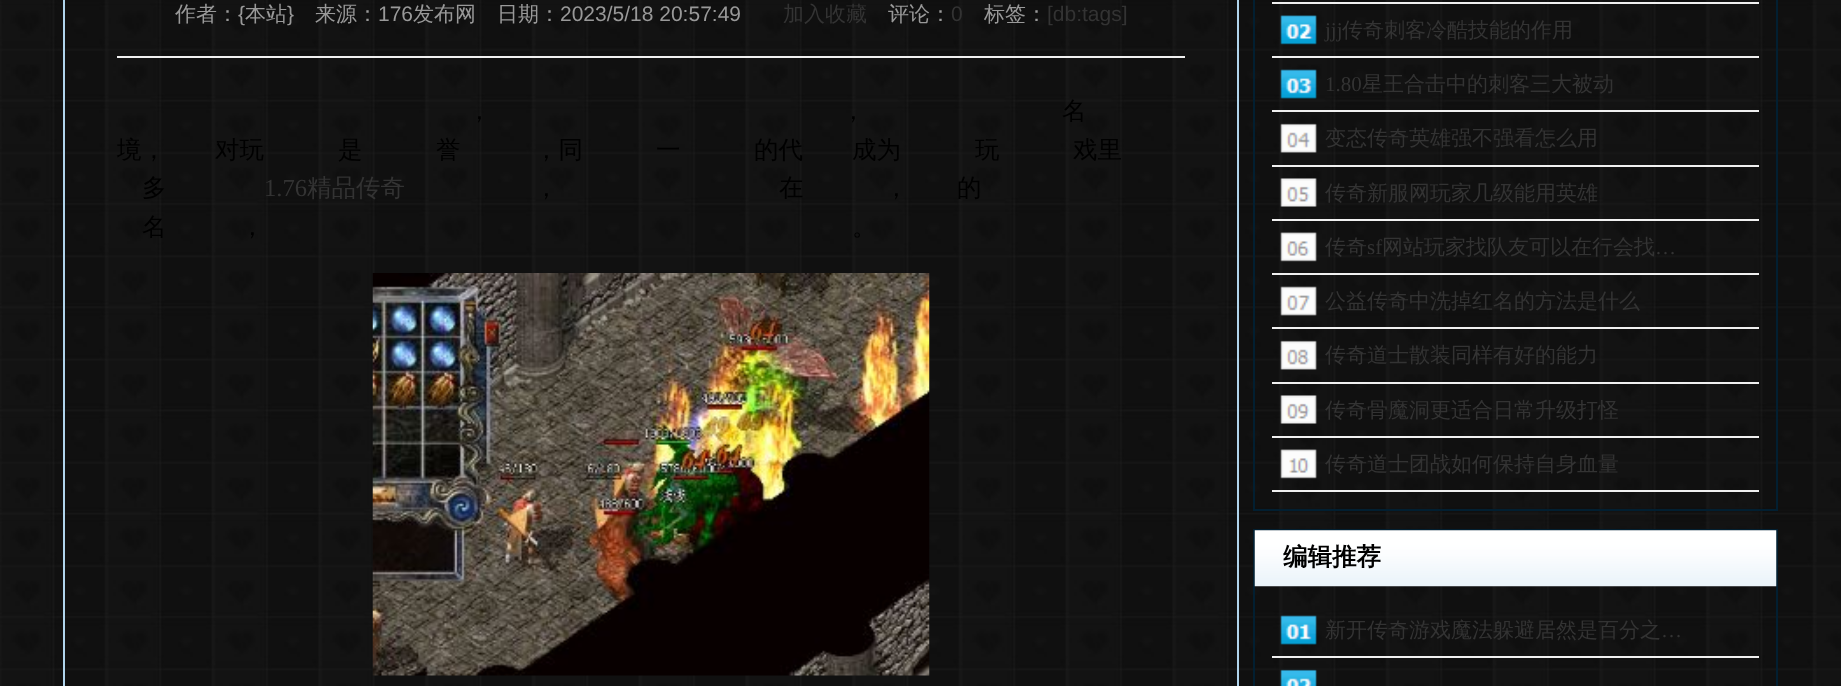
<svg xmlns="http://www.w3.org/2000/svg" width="1841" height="686">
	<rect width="100%" height="100%" fill="#FFFFFF" />
	<image x="0" y="0" width="1841" height="686" href="assets/img1.png" />
	<rect x="1237" y="0" width="2" height="686" fill="#B0D4EC" />
	<rect x="63" y="0" width="2" height="686" fill="#B0D4EC" />
	<rect x="117" y="56" width="1068" height="2" fill="#F0F0F0" />
	<text x="175" y="21" font-family="WenQuanYi Zen Hei" font-size="21" font-weight="500" fill="#999999">作者：</text>
	<text x="238" y="21" font-family="Liberation Sans" font-size="21" fill="#999999">{</text>
	<text x="245" y="21" font-family="WenQuanYi Zen Hei" font-size="21" font-weight="500" fill="#999999">本站</text>
	<text x="287" y="21" font-family="Liberation Sans" font-size="21" fill="#999999">}</text>
	<text x="315" y="21" font-family="WenQuanYi Zen Hei" font-size="21" font-weight="500" fill="#999999">来源：</text>
	<text x="378" y="21" font-family="Liberation Sans" font-size="21" fill="#999999">176</text>
	<text x="413" y="21" font-family="WenQuanYi Zen Hei" font-size="21" font-weight="500" fill="#999999">发布网　日期：</text>
	<text x="560" y="21" font-family="Liberation Sans" font-size="21" fill="#999999">2023/5/18 20:57:49</text>
	<text x="783" y="21" font-family="WenQuanYi Zen Hei" font-size="21" font-weight="500" fill="#333333">加入收藏</text>
	<text x="888" y="21" font-family="WenQuanYi Zen Hei" font-size="21" font-weight="500" fill="#999999">评论：</text>
	<text x="951" y="21" font-family="Liberation Sans" font-size="21" fill="#333333">0</text>
	<text x="984" y="21" font-family="WenQuanYi Zen Hei" font-size="21" font-weight="500" fill="#999999">标签：</text>
	<text x="1047" y="21" font-family="Liberation Sans" font-size="21" fill="#333333">[db:tags]</text>
	<g font-family="WenQuanYi Zen Hei" font-size="24.5" font-weight="500" fill="#000000">
		<text x="467" y="119">，</text>
		<text x="841" y="119">，</text>
		<text x="1062" y="119">名</text>
		<text x="117" y="158">境，</text>
		<text x="215" y="158">对玩</text>
		<text x="338" y="158">是</text>
		<text x="436" y="158">誉</text>
		<text x="534" y="158">，同</text>
		<text x="656" y="158">一</text>
		<text x="754" y="158">的代</text>
		<text x="852" y="158">成为</text>
		<text x="975" y="158">玩</text>
		<text x="1073" y="158">戏里</text>
		<text x="142" y="196">多</text>
	</g>
	<text x="264" y="196" font-family="Liberation Serif" font-size="24.5" fill="#333333">1.76</text>
	<text x="307" y="196" font-family="WenQuanYi Zen Hei" font-size="24.5" font-weight="500" fill="#333333">精品传奇</text>
	<g font-family="WenQuanYi Zen Hei" font-size="24.5" font-weight="500" fill="#000000">
		<text x="534" y="196">，</text>
		<text x="779" y="196">在</text>
		<text x="884" y="196">，</text>
		<text x="957" y="196">的</text>
		<text x="142" y="235">名</text>
		<text x="240" y="235">，</text>
		<text x="852" y="235">。</text>
	</g>
	<image x="372" y="273" width="558" height="403" href="assets/img2.png" />
	<rect x="1254" y="-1" width="523" height="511" fill="none" stroke="#021F31" stroke-width="2" />
	<image x="1280" y="15" width="37" height="464" href="assets/img3.png" />
	<rect x="1272" y="2" width="487" height="2" fill="#F0F0F0" />
	<rect x="1272" y="56" width="487" height="2" fill="#F0F0F0" />
	<text x="1325" y="37" font-family="Liberation Serif" font-size="21" fill="#333333">jjj</text>
	<text x="1342" y="37" font-family="WenQuanYi Zen Hei" font-size="21" font-weight="500" fill="#333333">传奇刺客冷酷技能的作用</text>
	<rect x="1272" y="110" width="487" height="2" fill="#F0F0F0" />
	<text x="1325" y="91" font-family="Liberation Serif" font-size="21" fill="#333333">1.80</text>
	<text x="1362" y="91" font-family="WenQuanYi Zen Hei" font-size="21" font-weight="500" fill="#333333">星王合击中的刺客三大被动</text>
	<rect x="1272" y="165" width="487" height="2" fill="#F0F0F0" />
	<text x="1325" y="145" font-family="WenQuanYi Zen Hei" font-size="21" font-weight="500" fill="#333333">变态传奇英雄强不强看怎么用</text>
	<rect x="1272" y="219" width="487" height="2" fill="#F0F0F0" />
	<text x="1325" y="200" font-family="WenQuanYi Zen Hei" font-size="21" font-weight="500" fill="#333333">传奇新服网玩家几级能用英雄</text>
	<rect x="1272" y="273" width="487" height="2" fill="#F0F0F0" />
	<text x="1325" y="254" font-family="WenQuanYi Zen Hei" font-size="21" font-weight="500" fill="#333333">传奇</text>
	<text x="1367" y="254" font-family="Liberation Serif" font-size="21" fill="#333333">sf</text>
	<text x="1382" y="254" font-family="WenQuanYi Zen Hei" font-size="21" font-weight="500" fill="#333333">网站玩家找队友可以在行会找</text>
	<text x="1655" y="254" font-family="Liberation Serif" font-size="21" fill="#333333">…</text>
	<rect x="1272" y="327" width="487" height="2" fill="#F0F0F0" />
	<text x="1325" y="308" font-family="WenQuanYi Zen Hei" font-size="21" font-weight="500" fill="#333333">公益传奇中洗掉红名的方法是什么</text>
	<rect x="1272" y="382" width="487" height="2" fill="#F0F0F0" />
	<text x="1325" y="362" font-family="WenQuanYi Zen Hei" font-size="21" font-weight="500" fill="#333333">传奇道士散装同样有好的能力</text>
	<rect x="1272" y="436" width="487" height="2" fill="#F0F0F0" />
	<text x="1325" y="417" font-family="WenQuanYi Zen Hei" font-size="21" font-weight="500" fill="#333333">传奇骨魔洞更适合日常升级打怪</text>
	<rect x="1272" y="490" width="487" height="2" fill="#F0F0F0" />
	<text x="1325" y="471" font-family="WenQuanYi Zen Hei" font-size="21" font-weight="500" fill="#333333">传奇道士团战如何保持自身血量</text>
	<rect x="1254" y="530" width="523" height="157" fill="none" stroke="#021F31" stroke-width="2" />
	<image x="1254" y="530" width="523" height="57" href="assets/img4.png" />
	<text x="1283" y="565" font-family="WenQuanYi Zen Hei" font-size="24.5" font-weight="700" fill="#000000">编辑推荐</text>
	<image x="1280" y="615" width="37" height="71" href="assets/img5.png" />
	<rect x="1272" y="656" width="487" height="2" fill="#F0F0F0" />
	<text x="1325" y="637" font-family="WenQuanYi Zen Hei" font-size="21" font-weight="500" fill="#333333">新开传奇游戏魔法躲避居然是百分之</text>
	<text x="1661" y="637" font-family="Liberation Serif" font-size="21" fill="#333333">…</text>
</svg>
